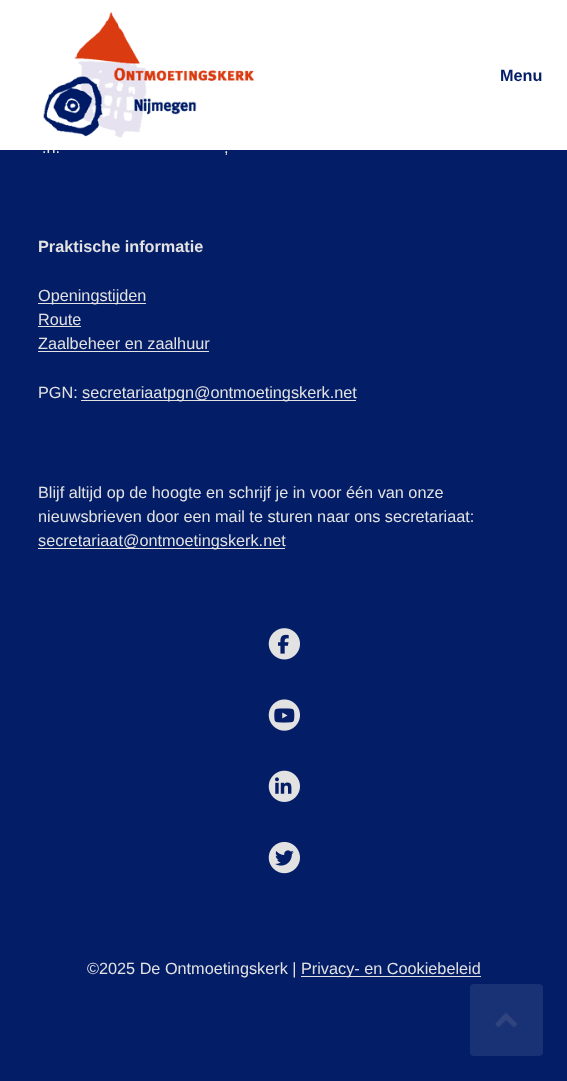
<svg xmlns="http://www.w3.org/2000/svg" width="567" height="1081">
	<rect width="100%" height="100%" fill="#031D67" />
	<text x="42" y="153" font-family="Liberation Sans" font-size="16.25" fill="#E2E2E2">.n.</text>
	<rect x="0" y="0" width="567" height="150" fill="#FFFFFF" />
	<image x="43" y="12" width="211" height="126" href="assets/img1.png" />
	<text x="500" y="81" font-family="Liberation Sans" font-size="16.25" font-weight="700" fill="#031D67">Menu</text>
	<text x="224" y="153" font-family="Liberation Sans" font-size="16.25" fill="#E2E2E2">,</text>
	<text x="38" y="252" font-family="Liberation Sans" font-size="16.25" font-weight="700" fill="#E2E2E2">Praktische informatie</text>
	<rect x="38" y="303" width="108" height="1" fill="#E2E2E2" />
	<g font-family="Liberation Sans" font-size="16.25" fill="#E2E2E2">
		<text x="38" y="301">Openingstijden</text>
		<text x="38" y="325">Route</text>
	</g>
	<rect x="38" y="326" width="43" height="1" fill="#E2E2E2" />
	<text x="38" y="349" font-family="Liberation Sans" font-size="16.25" fill="#E2E2E2">Zaalbeheer en zaalhuur</text>
	<rect x="38" y="351" width="171" height="1" fill="#E2E2E2" />
	<text x="38" y="398" font-family="Liberation Sans" font-size="16.25" fill="#E2E2E2">PGN:</text>
	<rect x="81" y="400" width="275" height="1" fill="#E2E2E2" />
	<g font-family="Liberation Sans" font-size="16.25" fill="#E2E2E2">
		<text x="82" y="398">secretariaatpgn@ontmoetingskerk.net</text>
		<text x="38" y="498">Blijf altijd op de hoogte en schrijf je in voor één van onze</text>
		<text x="38" y="522">nieuwsbrieven door een mail te sturen naar ons secretariaat:</text>
	</g>
	<rect x="38" y="548" width="247" height="1" fill="#E2E2E2" />
	<text x="38" y="546" font-family="Liberation Sans" font-size="16.25" fill="#E2E2E2">secretariaat@ontmoetingskerk.net</text>
	<image x="268" y="628" width="32" height="32" href="assets/img2.png" />
	<image x="278" y="634" width="11" height="20" href="assets/img3.png" />
	<image x="268" y="699" width="32" height="32" href="assets/img4.png" />
	<image x="274" y="708" width="21" height="15" href="assets/img5.png" />
	<image x="268" y="770" width="32" height="32" href="assets/img6.png" />
	<image x="275" y="777" width="17" height="17" href="assets/img7.png" />
	<image x="268" y="841" width="32" height="33" href="assets/img8.png" />
	<image x="275" y="850" width="19" height="16" href="assets/img9.png" />
	<text x="87" y="974" font-family="Liberation Sans" font-size="16.25" fill="#E2E2E2">©2025 De Ontmoetingskerk |</text>
	<rect x="301" y="976" width="180" height="1" fill="#E2E2E2" />
	<text x="301" y="974" font-family="Liberation Sans" font-size="16.25" fill="#E2E2E2">Privacy- en Cookiebeleid</text>
	<rect x="470" y="984" width="73" height="72" rx="4" fill="#193175" />
	<path d="M517.5 1024L506 1012.5L495 1024L498.5 1027.5L506 1020L514 1027.5Z" fill="#304480" />
</svg>
